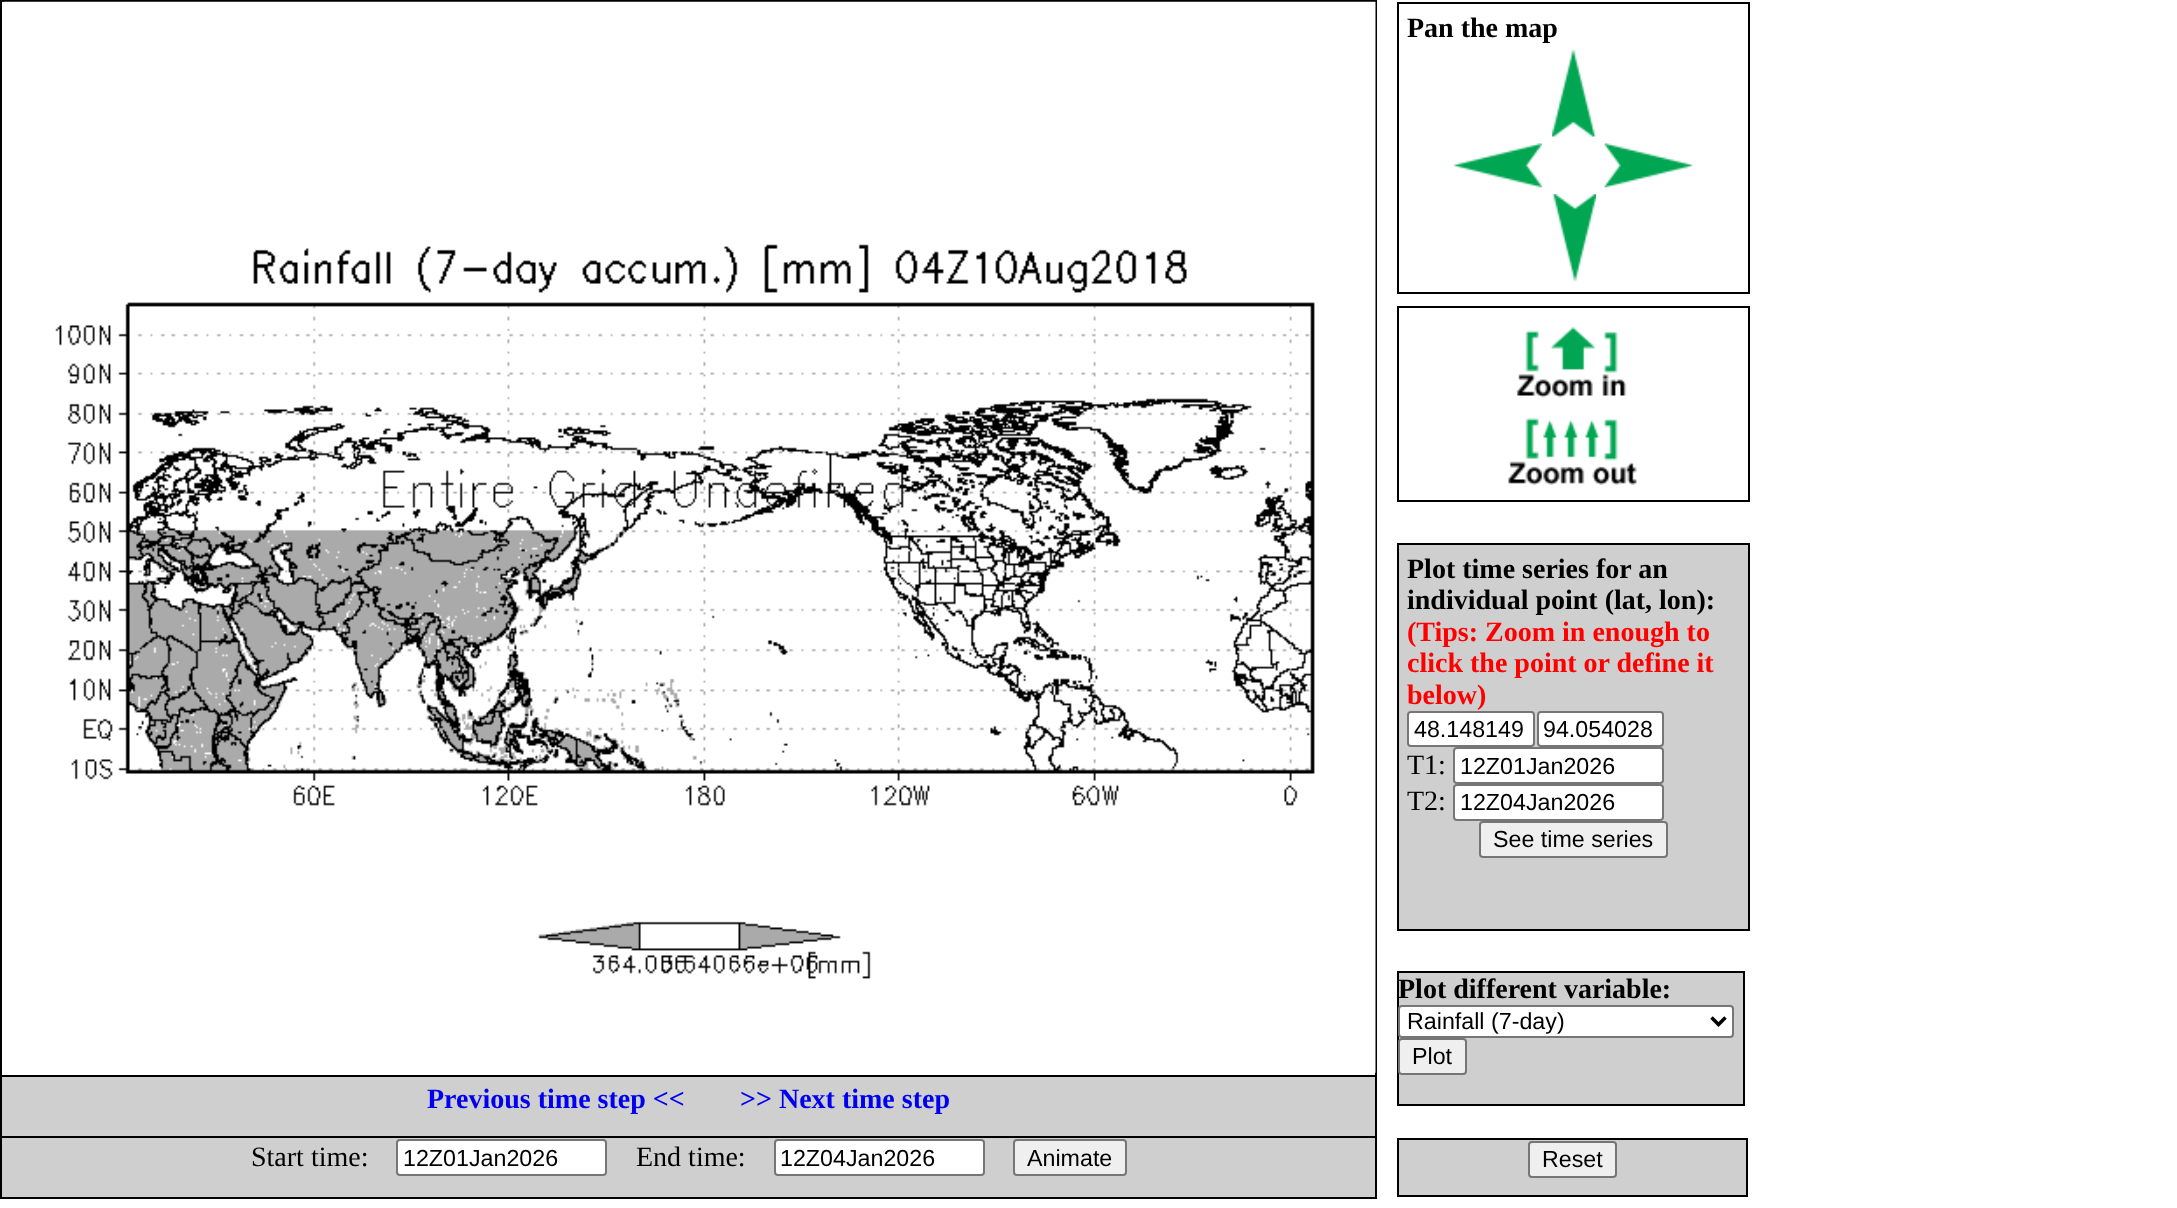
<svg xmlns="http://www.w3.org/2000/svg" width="2177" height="1208">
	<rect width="100%" height="100%" fill="#FFFFFF" />
	<rect x="1" y="1" width="1375" height="1197" fill="none" stroke="#000000" stroke-width="2" />
	<image x="3" y="1" width="1373" height="1072" href="assets/img1.png" />
	<rect x="1398" y="3" width="351" height="290" fill="none" stroke="#000000" stroke-width="2" />
	<text x="1407" y="37" font-family="Liberation Serif" font-size="28" font-weight="700" fill="#000000">Pan the map</text>
	<image x="1552" y="49" width="44" height="88" href="assets/img2.png" />
	<image x="1454" y="143" width="88" height="45" href="assets/img3.png" />
	<image x="1604" y="143" width="89" height="45" href="assets/img4.png" />
	<image x="1552" y="194" width="44" height="88" href="assets/img5.png" />
	<rect x="1398" y="307" width="351" height="194" fill="none" stroke="#000000" stroke-width="2" />
	<image x="1516" y="327" width="111" height="71" href="assets/img6.png" />
	<image x="1508" y="417" width="129" height="68" href="assets/img7.png" />
	<rect x="1398" y="544" width="351" height="386" fill="#CFCFCF" stroke="#000000" stroke-width="2" />
	<g font-family="Liberation Serif" font-size="28" font-weight="700" fill="#000000">
		<text x="1407" y="578">Plot time series for an</text>
		<text x="1407" y="609">individual point (lat, lon):</text>
	</g>
	<g font-family="Liberation Serif" font-size="28" font-weight="700" fill="#FF0000">
		<text x="1407" y="641">(Tips: Zoom in enough to</text>
		<text x="1407" y="672">click the point or define it</text>
		<text x="1407" y="704">below)</text>
	</g>
	<rect x="1408" y="712" width="126" height="34" rx="3" fill="#FFFFFF" stroke="#767676" stroke-width="2" />
	<text x="1414" y="737" font-family="Liberation Sans" font-size="23.25" fill="#000000">48.148149</text>
	<rect x="1538" y="712" width="125" height="34" rx="3" fill="#FFFFFF" stroke="#767676" stroke-width="2" />
	<text x="1543" y="737" font-family="Liberation Sans" font-size="23.25" fill="#000000">94.054028</text>
	<text x="1407" y="774" font-family="Liberation Serif" font-size="28" fill="#000000">T1:</text>
	<rect x="1454" y="748" width="209" height="35" rx="3" fill="#FFFFFF" stroke="#767676" stroke-width="2" />
	<text x="1460" y="774" font-family="Liberation Sans" font-size="23.25" fill="#000000">12Z01Jan2026</text>
	<text x="1407" y="810" font-family="Liberation Serif" font-size="28" fill="#000000">T2:</text>
	<rect x="1454" y="785" width="209" height="35" rx="3" fill="#FFFFFF" stroke="#767676" stroke-width="2" />
	<text x="1460" y="810" font-family="Liberation Sans" font-size="23.25" fill="#000000">12Z04Jan2026</text>
	<rect x="1480" y="822" width="187" height="35" rx="3" fill="#EFEFEF" stroke="#767676" stroke-width="2" />
	<text x="1493" y="847" font-family="Liberation Sans" font-size="23.25" fill="#000000">See time series</text>
	<rect x="1398" y="972" width="346" height="133" fill="#CFCFCF" stroke="#000000" stroke-width="2" />
	<text x="1398" y="998" font-family="Liberation Serif" font-size="28" font-weight="700" fill="#000000">Plot different variable:</text>
	<rect x="1399" y="1006" width="334" height="31" rx="3" fill="#FFFFFF" stroke="#767676" stroke-width="2" />
	<path d="M1711.5 1017.5L1718.5 1024.5L1725.5 1017.5" fill="none" stroke="#000000" stroke-width="3.5" />
	<text x="1407" y="1029" font-family="Liberation Sans" font-size="23.25" fill="#000000">Rainfall (7-day)</text>
	<rect x="1399" y="1039" width="67" height="35" rx="3" fill="#EFEFEF" stroke="#767676" stroke-width="2" />
	<text x="1412" y="1064" font-family="Liberation Sans" font-size="23.25" fill="#000000">Plot</text>
	<rect x="1" y="1076" width="1375" height="61" fill="#CFCFCF" stroke="#000000" stroke-width="2" />
	<g font-family="Liberation Serif" font-size="28" font-weight="700" fill="#0000EE">
		<text x="427" y="1108">Previous time step &lt;&lt;</text>
		<text x="740" y="1108">&gt;&gt; Next time step</text>
	</g>
	<rect x="2" y="1138" width="1373" height="59" fill="#CFCFCF" />
	<text x="251" y="1166" font-family="Liberation Serif" font-size="28" fill="#000000">Start time:</text>
	<rect x="397" y="1140" width="209" height="35" rx="3" fill="#FFFFFF" stroke="#767676" stroke-width="2" />
	<text x="403" y="1166" font-family="Liberation Sans" font-size="23.25" fill="#000000">12Z01Jan2026</text>
	<text x="636" y="1166" font-family="Liberation Serif" font-size="28" fill="#000000">End time:</text>
	<rect x="775" y="1140" width="209" height="35" rx="3" fill="#FFFFFF" stroke="#767676" stroke-width="2" />
	<text x="780" y="1166" font-family="Liberation Sans" font-size="23.25" fill="#000000">12Z04Jan2026</text>
	<rect x="1014" y="1140" width="112" height="35" rx="3" fill="#EFEFEF" stroke="#767676" stroke-width="2" />
	<text x="1027" y="1166" font-family="Liberation Sans" font-size="23.25" fill="#000000">Animate</text>
	<rect x="1398" y="1139" width="349" height="57" fill="#CFCFCF" stroke="#000000" stroke-width="2" />
	<rect x="1529" y="1142" width="87" height="35" rx="3" fill="#EFEFEF" stroke="#767676" stroke-width="2" />
	<text x="1542" y="1167" font-family="Liberation Sans" font-size="23.25" fill="#000000">Reset</text>
</svg>
